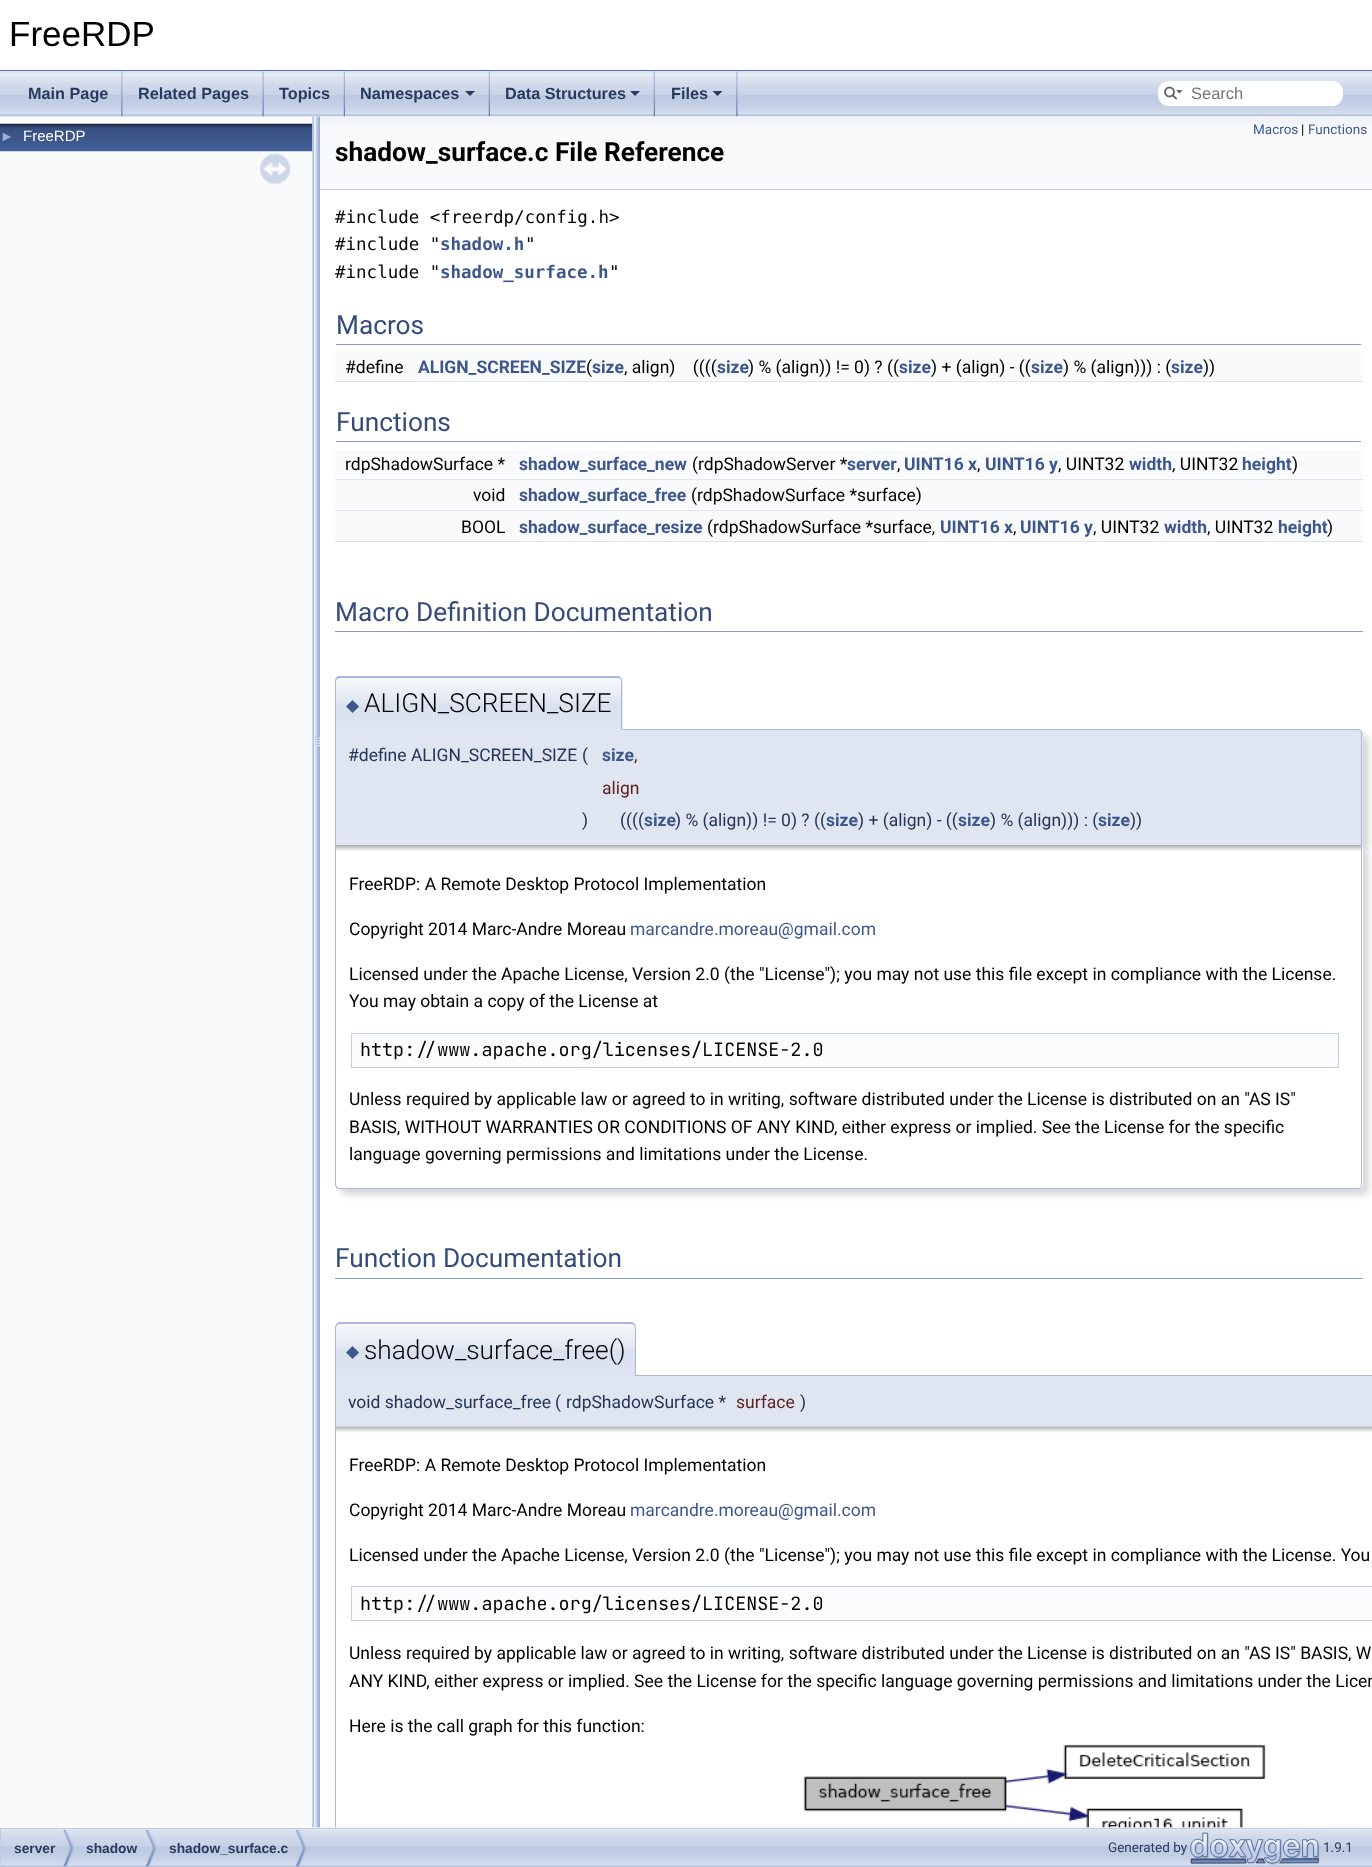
<svg xmlns="http://www.w3.org/2000/svg" width="1372" height="1867">
	<rect width="100%" height="100%" fill="#FFFFFF" />
	<rect x="0" y="70" width="1372" height="1" fill="#5373B4" />
	<text x="9" y="46" font-family="Liberation Sans" font-size="35" fill="#000000">FreeRDP</text>
	<path d="M335 1426H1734V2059C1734 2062 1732 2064 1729 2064H340C337 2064 335 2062 335 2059ZM336 1426H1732V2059C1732 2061 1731 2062 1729 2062H340C338 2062 336 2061 336 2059Z" fill="#A8B8D9" fill-rule="evenodd" />
	<image x="803" y="1744" width="463" height="84" href="assets/img14.png" />
	<image x="1" y="1827" width="1371" height="40" href="assets/img15.png" />
	<rect x="0" y="116" width="313" height="1712" fill="#F9FAFC" />
	<image x="0" y="123" width="313" height="29" href="assets/img6.png" />
	<image x="312" y="116" width="8" height="1712" href="assets/img8.png" />
	<rect x="320" y="116" width="1052" height="73" fill="#F9FAFC" />
	<image x="0" y="71" width="1372" height="46" href="assets/img1.png" />
	<image x="121" y="71" width="2" height="46" href="assets/img2.png" />
	<text x="28" y="99" font-family="Liberation Sans" font-size="16.25" font-weight="700" fill="#283A5D">Main Page</text>
	<image x="262" y="71" width="2" height="46" href="assets/img3.png" />
	<text x="138" y="99" font-family="Liberation Sans" font-size="16.25" font-weight="700" fill="#283A5D">Related Pages</text>
	<image x="343" y="71" width="2" height="46" href="assets/img4.png" />
	<text x="279" y="99" font-family="Liberation Sans" font-size="16.25" font-weight="700" fill="#283A5D">Topics</text>
	<image x="488" y="71" width="2" height="46" href="assets/img4.png" />
	<text x="360" y="99" font-family="Liberation Sans" font-size="16.25" font-weight="700" fill="#283A5D">Namespaces</text>
	<path d="M465 91H475L470 96Z" fill="#283A5D" />
	<image x="653" y="71" width="2" height="46" href="assets/img4.png" />
	<text x="505" y="99" font-family="Liberation Sans" font-size="16.25" font-weight="700" fill="#283A5D">Data Structures</text>
	<path d="M630 91H640L635 96Z" fill="#283A5D" />
	<image x="736" y="71" width="2" height="46" href="assets/img2.png" />
	<text x="671" y="99" font-family="Liberation Sans" font-size="16.25" font-weight="700" fill="#283A5D">Files</text>
	<path d="M712.5 91H722.5L717.5 96Z" fill="#283A5D" />
	<rect x="1158" y="81" width="185" height="25" rx="11" fill="#FFFFFF" />
	<image x="1164" y="86" width="19" height="14" href="assets/img5.png" />
	<text x="1191" y="99" font-family="Liberation Sans" font-size="16.5" fill="#757575">Search</text>
	<text x="0" y="141" font-family="Liberation Sans" font-size="14" fill="#9CAFD4">►</text>
	<text x="23" y="141" font-family="Liberation Sans" font-size="15" fill="#FFFFFF">FreeRDP</text>
	<image x="260" y="153" width="30" height="31" href="assets/img7.png" />
	<image x="320" y="118" width="1052" height="8" href="assets/img9.png" />
	<rect x="320" y="189" width="1052" height="1" fill="#C4CFE5" />
	<text x="1253" y="134" font-family="Roboto" font-size="13.5" fill="#3D578C">Macros</text>
	<text x="1301" y="134" font-family="Roboto" font-size="13.5" fill="#000000">|</text>
	<text x="1308" y="134" font-family="Roboto" font-size="13.5" fill="#3D578C">Functions</text>
	<text x="335" y="161" font-family="Roboto" font-size="26.25" font-weight="700" fill="#000000">shadow_surface.c File Reference</text>
	<g font-family="DejaVu Sans Mono" font-size="17.5" fill="#000000">
		<text x="335" y="223">#include &lt;freerdp/config.h&gt;</text>
		<text x="335" y="250">#include "</text>
	</g>
	<text x="440" y="250" font-family="DejaVu Sans Mono" font-size="17.5" font-weight="700" fill="#3D578C">shadow.h</text>
	<g font-family="DejaVu Sans Mono" font-size="17.5" fill="#000000">
		<text x="525" y="250">"</text>
		<text x="335" y="278">#include "</text>
	</g>
	<text x="440" y="278" font-family="DejaVu Sans Mono" font-size="17.5" font-weight="700" fill="#3D578C">shadow_surface.h</text>
	<text x="609" y="278" font-family="DejaVu Sans Mono" font-size="17.5" fill="#000000">"</text>
	<rect x="336" y="344" width="1025" height="1" fill="#879ECB" />
	<text x="336" y="334" font-family="Roboto" font-size="26.25" fill="#354C7B">Macros</text>
	<rect x="335" y="351" width="1028" height="29" fill="#F9FAFC" />
	<text x="345" y="373" font-family="Roboto" font-size="17.5" fill="#000000">#define</text>
	<text x="418" y="373" font-family="Roboto" font-size="17.5" font-weight="700" fill="#3D578C">ALIGN_SCREEN_SIZE</text>
	<text x="586" y="373" font-family="Roboto" font-size="17.5" fill="#000000">(</text>
	<text x="592" y="373" font-family="Roboto" font-size="17.5" font-weight="700" fill="#3D578C">size</text>
	<text x="624" y="373" font-family="Roboto" font-size="17.5" fill="#000000" xml:space="preserve">, align)    ((((</text>
	<text x="717" y="373" font-family="Roboto" font-size="17.5" font-weight="700" fill="#3D578C">size</text>
	<text x="748" y="373" font-family="Roboto" font-size="17.5" fill="#000000">) % (align)) != 0) ? ((</text>
	<text x="899" y="373" font-family="Roboto" font-size="17.5" font-weight="700" fill="#3D578C">size</text>
	<text x="931" y="373" font-family="Roboto" font-size="17.5" fill="#000000">) + (align) - ((</text>
	<text x="1031" y="373" font-family="Roboto" font-size="17.5" font-weight="700" fill="#3D578C">size</text>
	<text x="1063" y="373" font-family="Roboto" font-size="17.5" fill="#000000">) % (align))) : (</text>
	<text x="1171" y="373" font-family="Roboto" font-size="17.5" font-weight="700" fill="#3D578C">size</text>
	<text x="1203" y="373" font-family="Roboto" font-size="17.5" fill="#000000">))</text>
	<rect x="335" y="381" width="1028" height="1" fill="#DEE4F0" />
	<rect x="336" y="441" width="1025" height="1" fill="#879ECB" />
	<text x="336" y="431" font-family="Roboto" font-size="26.25" fill="#354C7B">Functions</text>
	<rect x="335" y="449" width="1028" height="29" fill="#F9FAFC" />
	<text x="345" y="470" font-family="Roboto" font-size="17.5" fill="#000000">rdpShadowSurface *</text>
	<text x="519" y="470" font-family="Roboto" font-size="17.5" font-weight="700" fill="#3D578C">shadow_surface_new</text>
	<text x="692" y="470" font-family="Roboto" font-size="17.5" fill="#000000">(rdpShadowServer *</text>
	<text x="847" y="470" font-family="Roboto" font-size="17.5" font-weight="700" fill="#3D578C">server</text>
	<text x="897" y="470" font-family="Roboto" font-size="17.5" fill="#000000">,</text>
	<text x="904" y="470" font-family="Roboto" font-size="17.5" font-weight="700" fill="#3D578C">UINT16 x</text>
	<text x="977" y="470" font-family="Roboto" font-size="17.5" fill="#000000">,</text>
	<text x="985" y="470" font-family="Roboto" font-size="17.5" font-weight="700" fill="#3D578C">UINT16 y</text>
	<text x="1058" y="470" font-family="Roboto" font-size="17.5" fill="#000000">, UINT32</text>
	<text x="1129" y="470" font-family="Roboto" font-size="17.5" font-weight="700" fill="#3D578C">width</text>
	<text x="1172" y="470" font-family="Roboto" font-size="17.5" fill="#000000">, UINT32</text>
	<text x="1242" y="470" font-family="Roboto" font-size="17.5" font-weight="700" fill="#3D578C">height</text>
	<text x="1292" y="470" font-family="Roboto" font-size="17.5" fill="#000000">)</text>
	<rect x="335" y="479" width="1028" height="1" fill="#DEE4F0" />
	<rect x="335" y="480" width="1028" height="29" fill="#F9FAFC" />
	<text x="473" y="501" font-family="Roboto" font-size="17.5" fill="#000000">void</text>
	<text x="519" y="501" font-family="Roboto" font-size="17.5" font-weight="700" fill="#3D578C">shadow_surface_free</text>
	<text x="691" y="501" font-family="Roboto" font-size="17.5" fill="#000000">(rdpShadowSurface *surface)</text>
	<rect x="335" y="510" width="1028" height="1" fill="#DEE4F0" />
	<rect x="335" y="511" width="1028" height="29" fill="#F9FAFC" />
	<text x="461" y="533" font-family="Roboto" font-size="17.5" fill="#000000">BOOL</text>
	<text x="519" y="533" font-family="Roboto" font-size="17.5" font-weight="700" fill="#3D578C">shadow_surface_resize</text>
	<text x="707" y="533" font-family="Roboto" font-size="17.5" fill="#000000">(rdpShadowSurface *surface,</text>
	<text x="940" y="533" font-family="Roboto" font-size="17.5" font-weight="700" fill="#3D578C">UINT16 x</text>
	<text x="1013" y="533" font-family="Roboto" font-size="17.5" fill="#000000">,</text>
	<text x="1020" y="533" font-family="Roboto" font-size="17.5" font-weight="700" fill="#3D578C">UINT16 y</text>
	<text x="1093" y="533" font-family="Roboto" font-size="17.5" fill="#000000">, UINT32</text>
	<text x="1164" y="533" font-family="Roboto" font-size="17.5" font-weight="700" fill="#3D578C">width</text>
	<text x="1207" y="533" font-family="Roboto" font-size="17.5" fill="#000000">, UINT32</text>
	<text x="1278" y="533" font-family="Roboto" font-size="17.5" font-weight="700" fill="#3D578C">height</text>
	<text x="1327" y="533" font-family="Roboto" font-size="17.5" fill="#000000">)</text>
	<rect x="335" y="541" width="1028" height="1" fill="#DEE4F0" />
	<rect x="335" y="631" width="1028" height="1" fill="#879ECB" />
	<text x="335" y="621" font-family="Roboto" font-size="26.25" fill="#354C7B">Macro Definition Documentation</text>
	<rect x="341" y="735" width="1028" height="116" rx="5" fill="#000000" fill-opacity="0.15" filter="blur(3px)" />
	<path d="M335 729H1358C1361 729 1363 731 1363 734V845H335Z" fill="#DFE5F1" />
	<path d="M335 729H1358C1360 729 1362 731 1362 734V845H335ZM336 730H1358C1360 730 1361 732 1361 734V845H336Z" fill="#A8B8D9" fill-rule="evenodd" />
	<path d="M340 676H618C621 676 623 678 623 681V730H335V681C335 678 337 676 340 676Z" fill="#E2E8F2" />
	<image x="335" y="677" width="288" height="52" href="assets/img10.png" />
	<path d="M340 676H618C620 676 622 678 622 681V730H335V681C335 678 337 676 340 676ZM340 678H618C620 678 621 679 621 681V730H336V681C336 679 338 678 340 678Z" fill="#A8B8D9" fill-rule="evenodd" />
	<text x="346" y="711" font-family="DejaVu Sans" font-size="17" fill="#3D578C">◆</text>
	<text x="364" y="712" font-family="Roboto" font-size="26.25" font-weight="300" fill="#000000">ALIGN_SCREEN_SIZE</text>
	<g font-family="Roboto" font-size="17.5" fill="#253555">
		<text x="348" y="761">#define ALIGN_SCREEN_SIZE</text>
		<text x="582" y="761">(</text>
	</g>
	<text x="602" y="761" font-family="Roboto" font-size="17.5" font-weight="700" fill="#3D578C">size</text>
	<g font-family="Roboto" font-size="17.5" fill="#602020">
		<text x="634" y="761">,</text>
		<text x="602" y="794">align</text>
	</g>
	<g font-family="Roboto" font-size="17.5" fill="#253555">
		<text x="582" y="826">)</text>
		<text x="620" y="826">((((</text>
	</g>
	<text x="644" y="826" font-family="Roboto" font-size="17.5" font-weight="700" fill="#3D578C">size</text>
	<text x="675" y="826" font-family="Roboto" font-size="17.5" fill="#253555">) % (align)) != 0) ? ((</text>
	<text x="826" y="826" font-family="Roboto" font-size="17.5" font-weight="700" fill="#3D578C">size</text>
	<text x="858" y="826" font-family="Roboto" font-size="17.5" fill="#253555">) + (align) - ((</text>
	<text x="958" y="826" font-family="Roboto" font-size="17.5" font-weight="700" fill="#3D578C">size</text>
	<text x="990" y="826" font-family="Roboto" font-size="17.5" fill="#253555">) % (align))) : (</text>
	<text x="1098" y="826" font-family="Roboto" font-size="17.5" font-weight="700" fill="#3D578C">size</text>
	<text x="1130" y="826" font-family="Roboto" font-size="17.5" fill="#253555">))</text>
	<rect x="341" y="851" width="1028" height="344" rx="5" fill="#000000" fill-opacity="0.15" filter="blur(3px)" />
	<path d="M335 845H1363V1184C1363 1187 1361 1189 1358 1189H340C337 1189 335 1187 335 1184Z" fill="#FFFFFF" />
	<image x="336" y="845" width="1027" height="6" href="assets/img11.png" />
	<path d="M335 845H1362V1184C1362 1187 1360 1189 1358 1189H340C337 1189 335 1187 335 1184ZM336 845H1361V1184C1361 1186 1360 1188 1358 1188H340C338 1188 336 1186 336 1184Z" fill="#A8B8D9" fill-rule="evenodd" />
	<g font-family="Roboto" font-size="17.5" fill="#000000">
		<text x="349" y="890">FreeRDP: A Remote Desktop Protocol Implementation</text>
		<text x="349" y="935">Copyright 2014 Marc-Andre Moreau</text>
	</g>
	<text x="630" y="935" font-family="Roboto" font-size="17.5" fill="#3D578C">marcandre.moreau@gmail.com</text>
	<g font-family="Roboto" font-size="17.5" fill="#000000">
		<text x="349" y="980">Licensed under the Apache License, Version 2.0 (the "License"); you may not use this file except in compliance with the License.</text>
		<text x="349" y="1007">You may obtain a copy of the License at</text>
	</g>
	<rect x="351.5" y="1033.5" width="987" height="34" fill="#FBFCFD" stroke="#C4CFE5" />
	<text x="360" y="1056" font-family="JetBrains Mono" font-size="18.4" fill="#000000">http://www.apache.org/licenses/LICENSE-2.0</text>
	<g font-family="Roboto" font-size="17.5" fill="#000000">
		<text x="349" y="1105">Unless required by applicable law or agreed to in writing, software distributed under the License is distributed on an "AS IS"</text>
		<text x="349" y="1133">BASIS, WITHOUT WARRANTIES OR CONDITIONS OF ANY KIND, either express or implied. See the License for the specific</text>
		<text x="349" y="1160">language governing permissions and limitations under the License.</text>
	</g>
	<rect x="335" y="1278" width="1028" height="1" fill="#879ECB" />
	<text x="335" y="1267" font-family="Roboto" font-size="26.25" fill="#354C7B">Function Documentation</text>
	<rect x="336" y="1376" width="1036" height="50" fill="#DFE5F1" />
	<path d="M335 1375H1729C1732 1375 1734 1377 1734 1380V1426H335ZM336 1376H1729C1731 1376 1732 1378 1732 1380V1426H336Z" fill="#A8B8D9" fill-rule="evenodd" />
	<image x="335" y="1323" width="301" height="53" href="assets/img12.png" />
	<path d="M340 1322H631C634 1322 636 1325 636 1328V1376H335V1328C335 1325 337 1322 340 1322ZM340 1324H631C633 1324 635 1325 635 1328V1376H336V1328C336 1325 338 1324 340 1324Z" fill="#A8B8D9" fill-rule="evenodd" />
	<text x="346" y="1357" font-family="DejaVu Sans" font-size="17" fill="#3D578C">◆</text>
	<text x="364" y="1359" font-family="Roboto" font-size="26.25" font-weight="300" fill="#000000">shadow_surface_free()</text>
	<g font-family="Roboto" font-size="17.5" fill="#253555">
		<text x="348" y="1408">void shadow_surface_free</text>
		<text x="555" y="1408">(</text>
		<text x="566" y="1408">rdpShadowSurface *</text>
	</g>
	<text x="736" y="1408" font-family="Roboto" font-size="17.5" fill="#602020">surface</text>
	<text x="800" y="1408" font-family="Roboto" font-size="17.5" fill="#253555">)</text>
	<image x="336" y="1426" width="1036" height="6" href="assets/img13.png" />
	<g font-family="Roboto" font-size="17.5" fill="#000000">
		<text x="349" y="1471">FreeRDP: A Remote Desktop Protocol Implementation</text>
		<text x="349" y="1516">Copyright 2014 Marc-Andre Moreau</text>
	</g>
	<text x="630" y="1516" font-family="Roboto" font-size="17.5" fill="#3D578C">marcandre.moreau@gmail.com</text>
	<text x="349" y="1561" font-family="Roboto" font-size="17.5" fill="#000000">Licensed under the Apache License, Version 2.0 (the "License"); you may not use this file except in compliance with the License. You</text>
	<rect x="351.5" y="1586.5" width="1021" height="34" fill="#FBFCFD" stroke="#C4CFE5" />
	<text x="360" y="1610" font-family="JetBrains Mono" font-size="18.4" fill="#000000">http://www.apache.org/licenses/LICENSE-2.0</text>
	<g font-family="Roboto" font-size="17.5" fill="#000000">
		<text x="349" y="1659">Unless required by applicable law or agreed to in writing, software distributed under the License is distributed on an "AS IS" BASIS, W</text>
		<text x="349" y="1687">ANY KIND, either express or implied. See the License for the specific language governing permissions and limitations under the Licen</text>
		<text x="349" y="1732">Here is the call graph for this function:</text>
	</g>
	<rect x="0.5" y="1828.5" width="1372" height="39" fill="none" stroke="#C2CDE4" />
	<image x="63" y="1830" width="11" height="37" href="assets/img16.png" />
	<text x="14" y="1853" font-family="Liberation Sans" font-size="13.75" font-weight="700" fill="#283A5D">server</text>
	<image x="146" y="1830" width="11" height="37" href="assets/img17.png" />
	<text x="86" y="1853" font-family="Liberation Sans" font-size="13.75" font-weight="700" fill="#283A5D">shadow</text>
	<image x="296" y="1830" width="11" height="37" href="assets/img17.png" />
	<text x="169" y="1853" font-family="Liberation Sans" font-size="13.75" font-weight="700" fill="#283A5D">shadow_surface.c</text>
	<text x="1108" y="1852" font-family="Roboto" font-size="13.5" fill="#283A5D">Generated by</text>
	<image x="1190" y="1832" width="130" height="33" href="assets/img18.png" />
	<text x="1323" y="1852" font-family="Roboto" font-size="13.5" fill="#283A5D">1.9.1</text>
</svg>
